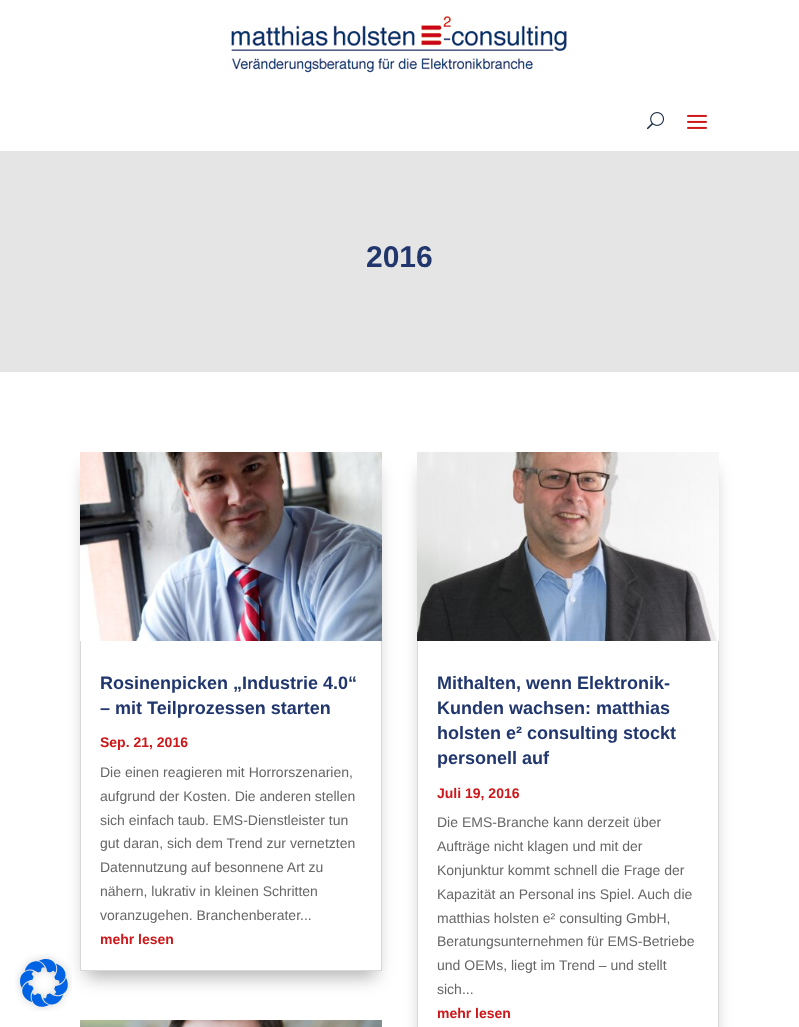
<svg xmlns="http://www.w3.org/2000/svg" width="799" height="1027">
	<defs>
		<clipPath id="clip1"><path d="M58 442H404V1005H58ZM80 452H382V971H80Z" clip-rule="evenodd" /></clipPath>
		<clipPath id="clip2"><path d="M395 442H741V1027H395ZM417 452H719V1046H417Z" clip-rule="evenodd" /></clipPath>
	</defs>
	<rect width="100%" height="100%" fill="#FFFFFF" />
	<g clip-path="url(#clip1)">
		<rect x="86" y="470" width="290" height="507" fill="#000000" fill-opacity="0.3" filter="blur(9px)" />
	</g>
	<image x="15" y="954" width="57" height="57" href="assets/img1.png" />
	<image x="231" y="15" width="336" height="58" href="assets/img2.png" />
	<image x="647" y="112" width="17" height="18" href="assets/img3.png" />
	<image x="687" y="114" width="20" height="15" href="assets/img4.png" />
	<rect x="0" y="151" width="799" height="221" fill="#E5E5E5" />
	<text x="366" y="267" font-family="Liberation Sans" font-size="30" font-weight="700" fill="#20366D">2016</text>
	<rect x="80.5" y="452.5" width="301" height="518" fill="none" stroke="#D8D8D8" />
	<image x="80" y="452" width="302" height="189" href="assets/img5.png" />
	<g font-family="Liberation Sans" font-size="18" font-weight="700" fill="#20366D">
		<text x="100" y="689">Rosinenpicken „Industrie 4.0“</text>
		<text x="100" y="714">– mit Teilprozessen starten</text>
	</g>
	<text x="100" y="747" font-family="Liberation Sans" font-size="14" font-weight="700" fill="#CD1719">Sep. 21, 2016</text>
	<g font-family="Liberation Sans" font-size="14" fill="#666666">
		<text x="100" y="777">Die einen reagieren mit Horrorszenarien,</text>
		<text x="100" y="801">aufgrund der Kosten. Die anderen stellen</text>
		<text x="100" y="825">sich einfach taub. EMS-Dienstleister tun</text>
		<text x="100" y="848">gut daran, sich dem Trend zur vernetzten</text>
		<text x="100" y="872">Datennutzung auf besonnene Art zu</text>
		<text x="100" y="896">nähern, lukrativ in kleinen Schritten</text>
		<text x="100" y="920">voranzugehen. Branchenberater...</text>
	</g>
	<text x="100" y="944" font-family="Liberation Sans" font-size="14" font-weight="700" fill="#CD1719">mehr lesen</text>
	<image x="80" y="1020" width="302" height="7" href="assets/img6.png" />
	<g clip-path="url(#clip2)">
		<rect x="423" y="470" width="290" height="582" fill="#000000" fill-opacity="0.3" filter="blur(9px)" />
	</g>
	<rect x="417.5" y="452.5" width="301" height="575" fill="none" stroke="#D8D8D8" />
	<image x="417" y="452" width="302" height="189" href="assets/img7.png" />
	<g font-family="Liberation Sans" font-size="18" font-weight="700" fill="#20366D">
		<text x="437" y="689">Mithalten, wenn Elektronik-</text>
		<text x="437" y="714">Kunden wachsen: matthias</text>
		<text x="437" y="739">holsten e² consulting stockt</text>
		<text x="437" y="764">personell auf</text>
	</g>
	<text x="437" y="798" font-family="Liberation Sans" font-size="14" font-weight="700" fill="#CD1719">Juli 19, 2016</text>
	<g font-family="Liberation Sans" font-size="14" fill="#666666">
		<text x="437" y="827">Die EMS-Branche kann derzeit über</text>
		<text x="437" y="851">Aufträge nicht klagen und mit der</text>
		<text x="437" y="875">Konjunktur kommt schnell die Frage der</text>
		<text x="437" y="899">Kapazität an Personal ins Spiel. Auch die</text>
		<text x="437" y="923">matthias holsten e² consulting GmbH,</text>
		<text x="437" y="946">Beratungsunternehmen für EMS-Betriebe</text>
		<text x="437" y="970">und OEMs, liegt im Trend – und stellt</text>
		<text x="437" y="994">sich...</text>
	</g>
	<text x="437" y="1018" font-family="Liberation Sans" font-size="14" font-weight="700" fill="#CD1719">mehr lesen</text>
</svg>
